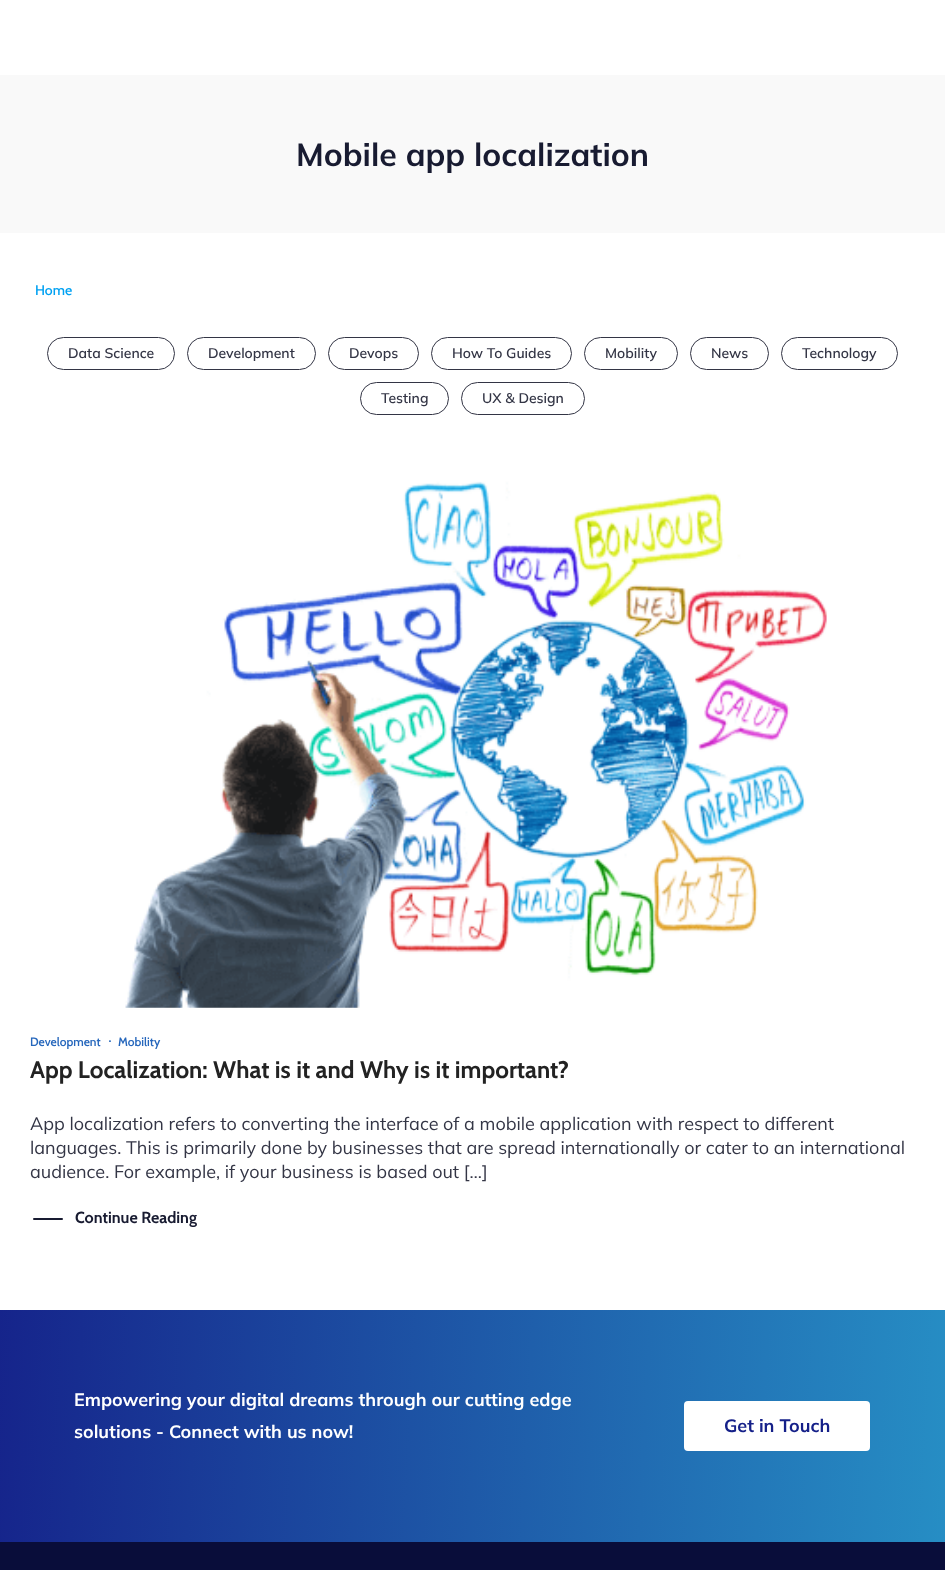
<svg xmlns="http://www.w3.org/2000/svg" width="945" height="1570">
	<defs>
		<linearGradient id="g1" gradientUnits="userSpaceOnUse" x1="-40" y1="1399" x2="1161" y2="1462"><stop offset="0" stop-color="#152089" /><stop offset="0.57" stop-color="#216CB2" /><stop offset="1" stop-color="#2AA5D1" /></linearGradient>
	</defs>
	<rect width="100%" height="100%" fill="#FFFFFF" />
	<rect x="0" y="75" width="945" height="158" fill="#F9F9F9" />
	<text x="296" y="166" font-family="Mulish" font-size="32" font-weight="700" fill="#181B31">Mobile app localization</text>
	<text x="35" y="295" font-family="Cabin" font-size="14" font-weight="500" fill="#00A1F2">Home</text>
	<rect x="47.5" y="337.5" width="127" height="32" rx="16" fill="none" stroke="#333545" />
	<text x="68" y="358" font-family="Mulish" font-size="14" font-weight="600" fill="#333545">Data Science</text>
	<rect x="187.5" y="337.5" width="128" height="32" rx="16" fill="none" stroke="#333545" />
	<text x="208" y="358" font-family="Mulish" font-size="14" font-weight="600" fill="#333545">Development</text>
	<rect x="328.5" y="337.5" width="90" height="32" rx="16" fill="none" stroke="#333545" />
	<text x="349" y="358" font-family="Mulish" font-size="14" font-weight="600" fill="#333545">Devops</text>
	<rect x="431.5" y="337.5" width="140" height="32" rx="16" fill="none" stroke="#333545" />
	<text x="452" y="358" font-family="Mulish" font-size="14" font-weight="600" fill="#333545">How To Guides</text>
	<rect x="584.5" y="337.5" width="93" height="32" rx="16" fill="none" stroke="#333545" />
	<text x="605" y="358" font-family="Mulish" font-size="14" font-weight="600" fill="#333545">Mobility</text>
	<rect x="690.5" y="337.5" width="78" height="32" rx="16" fill="none" stroke="#333545" />
	<text x="711" y="358" font-family="Mulish" font-size="14" font-weight="600" fill="#333545">News</text>
	<rect x="781.5" y="337.5" width="116" height="32" rx="16" fill="none" stroke="#333545" />
	<text x="802" y="358" font-family="Mulish" font-size="14" font-weight="600" fill="#333545">Technology</text>
	<rect x="360.5" y="382.5" width="88" height="32" rx="16" fill="none" stroke="#333545" />
	<text x="381" y="403" font-family="Mulish" font-size="14" font-weight="600" fill="#333545">Testing</text>
	<rect x="461.5" y="382.5" width="123" height="32" rx="16" fill="none" stroke="#333545" />
	<text x="482" y="403" font-family="Mulish" font-size="14" font-weight="600" fill="#333545">UX &amp; Design</text>
	<image x="30" y="438" width="885" height="570" href="assets/img1.png" />
	<text x="30" y="1046" font-family="Cabin" font-size="12" font-weight="600" fill="#2667BC">Development</text>
	<text x="108" y="1046" font-family="Roboto" font-size="14" font-weight="500" fill="#2667BC">·</text>
	<text x="118" y="1046" font-family="Cabin" font-size="12" font-weight="600" fill="#2667BC">Mobility</text>
	<text x="30" y="1078" font-family="Cabin" font-size="24" font-weight="700" fill="#222222">App Localization: What is it and Why is it important?</text>
	<g font-family="Mulish" font-size="18" fill="#333545">
		<text x="30" y="1130">App localization refers to converting the interface of a mobile application with respect to different</text>
		<text x="30" y="1154">languages. This is primarily done by businesses that are spread internationally or cater to an international</text>
		<text x="30" y="1178">audience. For example, if your business is based out […]</text>
	</g>
	<rect x="33" y="1218" width="30" height="2" rx="1" fill="#181B31" />
	<text x="75" y="1223" font-family="Cabin" font-size="16" font-weight="700" fill="#181B31">Continue Reading</text>
	<rect x="0" y="1310" width="945" height="232" fill="url(#g1)" />
	<g font-family="Mulish" font-size="18" font-weight="700" fill="#FFFFFF">
		<text x="74" y="1406">Empowering your digital dreams through our cutting edge</text>
		<text x="74" y="1438">solutions - Connect with us now!</text>
	</g>
	<rect x="684" y="1401" width="186" height="50" rx="4" fill="#FFFFFF" />
	<text x="724" y="1432" font-family="Mulish" font-size="18" font-weight="700" fill="#152089">Get in Touch</text>
	<rect x="0" y="1542" width="945" height="28" fill="#090D3A" />
</svg>
